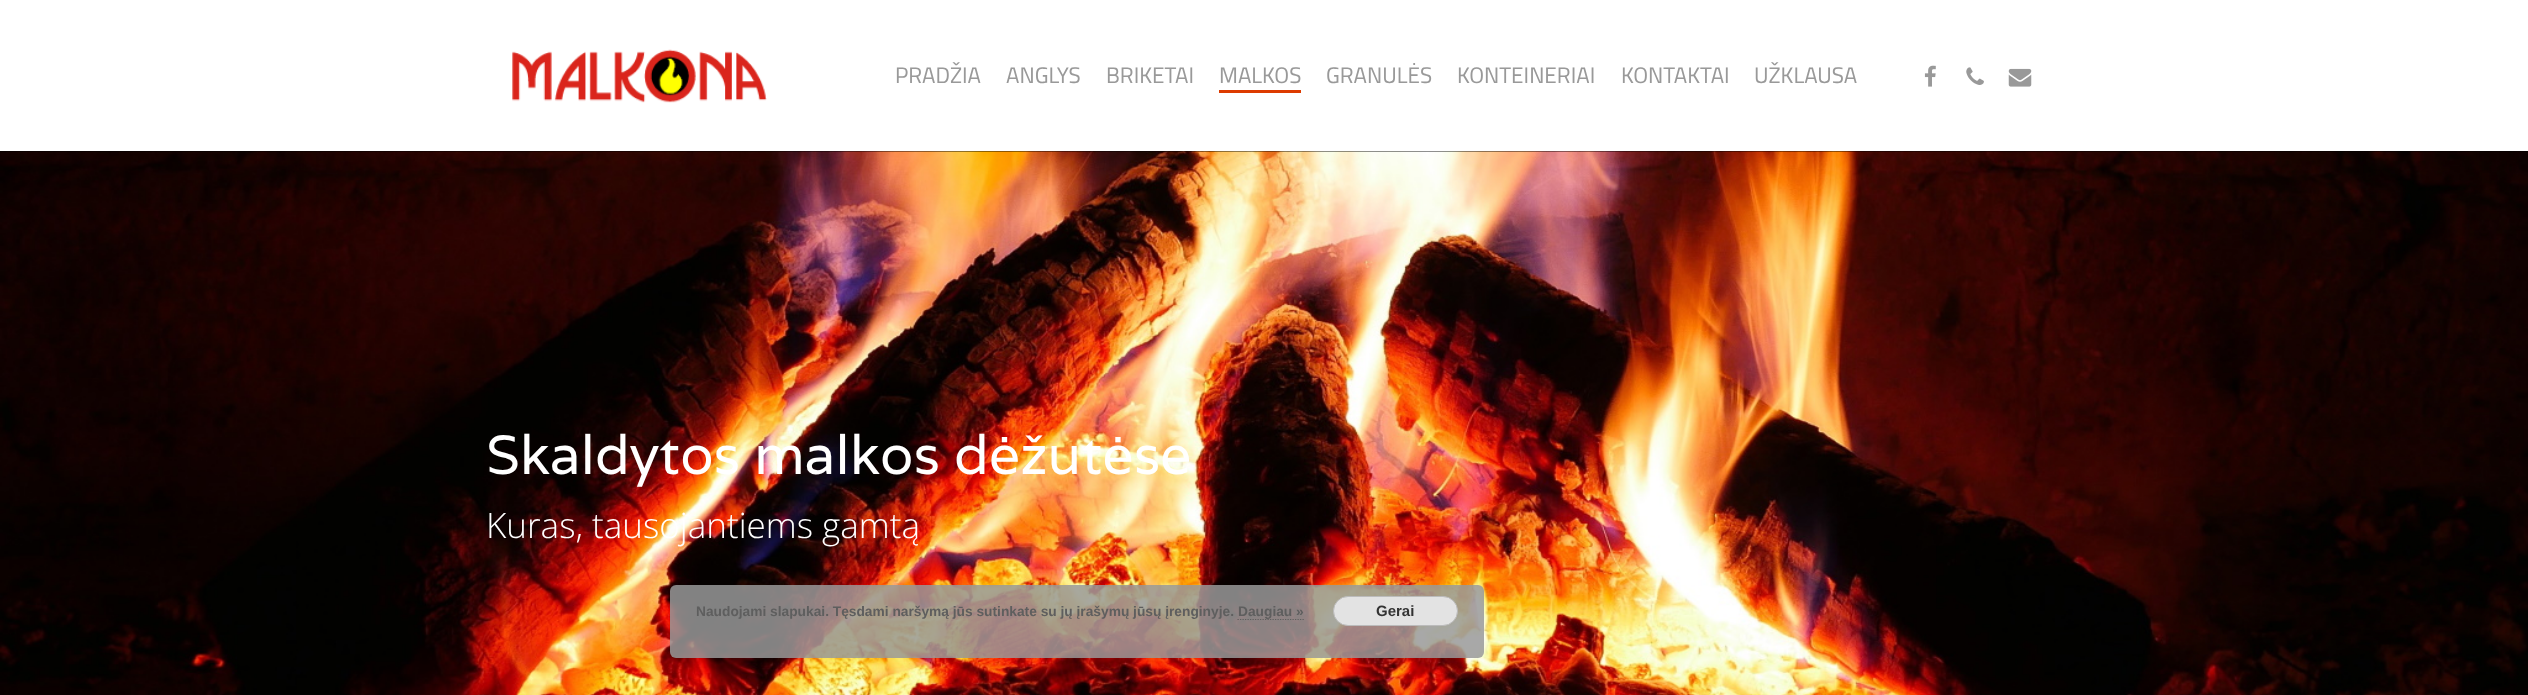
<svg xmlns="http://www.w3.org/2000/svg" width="2528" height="695">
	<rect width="100%" height="100%" fill="#FFFFFF" />
	<image x="512" y="49" width="255" height="54" href="assets/img1.png" />
	<g font-family="Cairo" font-size="22.5" fill="#999999">
		<text x="895" y="83">PRADŽIA</text>
		<text x="1006" y="83">ANGLYS</text>
		<text x="1106" y="83">BRIKETAI</text>
		<text x="1219" y="83">MALKOS</text>
	</g>
	<rect x="1219" y="90" width="82" height="3" fill="#DD3B00" />
	<g font-family="Cairo" font-size="22.5" fill="#999999">
		<text x="1326" y="83">GRANULĖS</text>
		<text x="1457" y="83">KONTEINERIAI</text>
		<text x="1621" y="83">KONTAKTAI</text>
		<text x="1754" y="83">UŽKLAUSA</text>
	</g>
	<image x="1924" y="65" width="12" height="22" href="assets/img2.png" />
	<image x="1966" y="67" width="18" height="18" href="assets/img3.png" />
	<image x="2008" y="68" width="24" height="19" href="assets/img4.png" />
	<rect x="0" y="151" width="2528" height="1" fill="#000000" />
	<image x="0" y="151" width="2528" height="544" href="assets/img5.png" />
	<text x="486" y="474" font-family="Varela" font-size="55" fill="#FFFFFF">Skaldytos malkos dėžutėse</text>
	<text x="486" y="538" font-family="Open Sans" font-size="35" font-weight="300" fill="#FFFFFF">Kuras, tausojantiems gamtą</text>
	<rect x="670" y="585" width="814" height="73" rx="6" fill="#999999" fill-opacity="0.85" />
	<text x="696" y="616" font-family="Liberation Sans" font-size="13.75" font-weight="700" fill="#5E5E5E">Naudojami slapukai. Tęsdami naršymą jūs sutinkate su jų įrašymų jūsų įrenginyje.</text>
	<path d="M1237.5 619.5H1304" fill="none" stroke="#5E5E5E" stroke-width="1.2" stroke-dasharray="1.25 1.25" />
	<text x="1238" y="616" font-family="Liberation Sans" font-size="13.75" font-weight="700" fill="#5E5E5E">Daugiau »</text>
	<rect x="1333.5" y="596.5" width="124" height="29" rx="14.5" fill="#E3E3E3" stroke="#BBBBBB" />
	<text x="1376" y="616" font-family="Liberation Sans" font-size="15" font-weight="700" fill="#333333">Gerai</text>
</svg>
